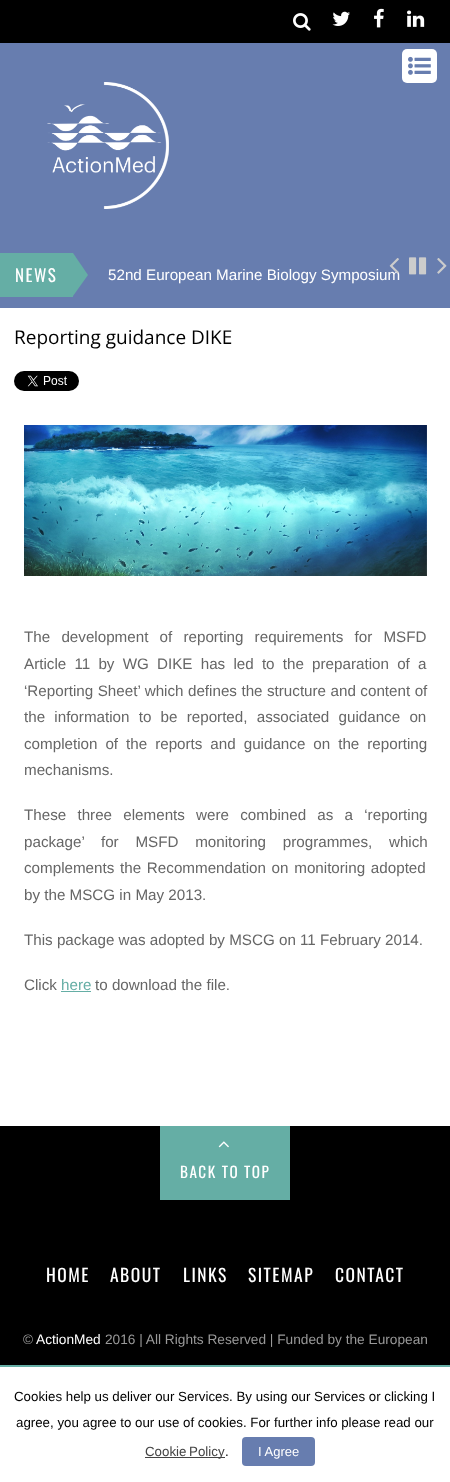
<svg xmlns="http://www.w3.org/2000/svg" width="450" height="1482">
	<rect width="100%" height="100%" fill="#FFFFFF" />
	<rect x="0" y="43" width="450" height="265" fill="#677DAF" />
	<rect x="0" y="0" width="450" height="43" fill="#000000" />
	<image x="293" y="13" width="18" height="18" href="assets/img1.png" />
	<image x="332" y="11" width="18" height="15" href="assets/img2.png" />
	<image x="374" y="8" width="10" height="20" href="assets/img3.png" />
	<image x="407" y="10" width="18" height="17" href="assets/img4.png" />
	<rect x="402" y="49" width="35" height="34" rx="5" fill="#FFFFFF" />
	<image x="408" y="56" width="23" height="19" href="assets/img5.png" />
	<image x="47" y="82" width="122" height="127" href="assets/img6.png" />
	<rect x="0" y="253" width="73" height="44" fill="#65AEA5" />
	<text x="15" y="282" font-family="Oswald" font-size="17" letter-spacing="1.5" fill="#FFFFFF">NEWS</text>
	<path d="M73 296V253L88 275Z" fill="#65AEA5" />
	<text x="108" y="280" font-family="Liberation Sans" font-size="15.2" fill="#FFFFFF">52nd European Marine Biology Symposium</text>
	<image x="389" y="258" width="10" height="16" href="assets/img7.png" />
	<image x="409" y="257" width="18" height="18" href="assets/img8.png" />
	<image x="437" y="258" width="10" height="16" href="assets/img9.png" />
	<text x="14" y="344" font-family="Open Sans" font-size="19" fill="#000000">Reporting guidance DIKE</text>
	<image x="14" y="371" width="65" height="20" href="assets/img10.png" />
	<image x="24" y="425" width="403" height="151" href="assets/img11.png" />
	<g font-family="Liberation Sans" font-size="15.2" fill="#666666">
		<text x="24" y="642" word-spacing="7">The development of reporting requirements for MSFD</text>
		<text x="24" y="669" word-spacing="4">Article 11 by WG DIKE has led to the preparation of a</text>
		<text x="24" y="696" word-spacing="0.25">‘Reporting Sheet’ which defines the structure and content of</text>
		<text x="24" y="722" word-spacing="5">the information to be reported, associated guidance on</text>
		<text x="24" y="749" word-spacing="3.75">completion of the reports and guidance on the reporting</text>
		<text x="24" y="775">mechanisms.</text>
		<text x="24" y="820" word-spacing="7">These three elements were combined as a ‘reporting</text>
		<text x="24" y="847" word-spacing="12.5">package’ for MSFD monitoring programmes, which</text>
		<text x="24" y="873" word-spacing="1.5">complements the Recommendation on monitoring adopted</text>
		<text x="24" y="900">by the MSCG in May 2013.</text>
		<text x="24" y="945">This package was adopted by MSCG on 11 February 2014.</text>
		<text x="24" y="990">Click</text>
	</g>
	<text x="61" y="990" font-family="Liberation Sans" font-size="15.2" fill="#65AEA5">here</text>
	<rect x="61" y="991" width="30" height="1" fill="#65AEA5" />
	<text x="95" y="990" font-family="Liberation Sans" font-size="15.2" fill="#666666">to download the file.</text>
	<rect x="0" y="1126" width="450" height="239" fill="#000000" />
	<rect x="160" y="1126" width="130" height="74" fill="#65AEA5" />
	<image x="218" y="1141" width="11" height="7" href="assets/img12.png" />
	<text x="180" y="1178" font-family="Oswald" font-size="15.2" letter-spacing="1.5" fill="#FFFFFF">BACK TO TOP</text>
	<g font-family="Oswald" font-size="17.5" letter-spacing="1.5" fill="#FFFFFF">
		<text x="46" y="1282">HOME</text>
		<text x="110" y="1282">ABOUT</text>
		<text x="183" y="1282">LINKS</text>
		<text x="248" y="1282">SITEMAP</text>
		<text x="335" y="1282">CONTACT</text>
	</g>
	<text x="23" y="1344" font-family="Liberation Sans" font-size="13.7" fill="#999999">©</text>
	<text x="36" y="1344" font-family="Liberation Sans" font-size="13.7" fill="#FFFFFF">ActionMed</text>
	<text x="105" y="1344" font-family="Liberation Sans" font-size="13.7" fill="#999999">2016 | All Rights Reserved | Funded by the European</text>
	<rect x="0" y="1365" width="450" height="2" fill="#65AEA5" />
	<g font-family="Liberation Sans" font-size="13.3" fill="#000000">
		<text x="14" y="1401">Cookies help us deliver our Services. By using our Services or clicking I</text>
		<text x="16" y="1427">agree, you agree to our use of cookies. For further info please read our</text>
	</g>
	<rect x="145" y="1457" width="80" height="1" fill="#444444" />
	<text x="145" y="1456" word-spacing="-1" font-family="Liberation Sans" font-size="13.3" fill="#444444">Cookie Policy</text>
	<text x="225" y="1456" font-family="Liberation Sans" font-size="13.3" fill="#000000">.</text>
	<rect x="242" y="1437" width="73" height="29" rx="4" fill="#677DAF" />
	<text x="258" y="1456" font-family="Liberation Sans" font-size="13" fill="#FFFFFF">I Agree</text>
</svg>
